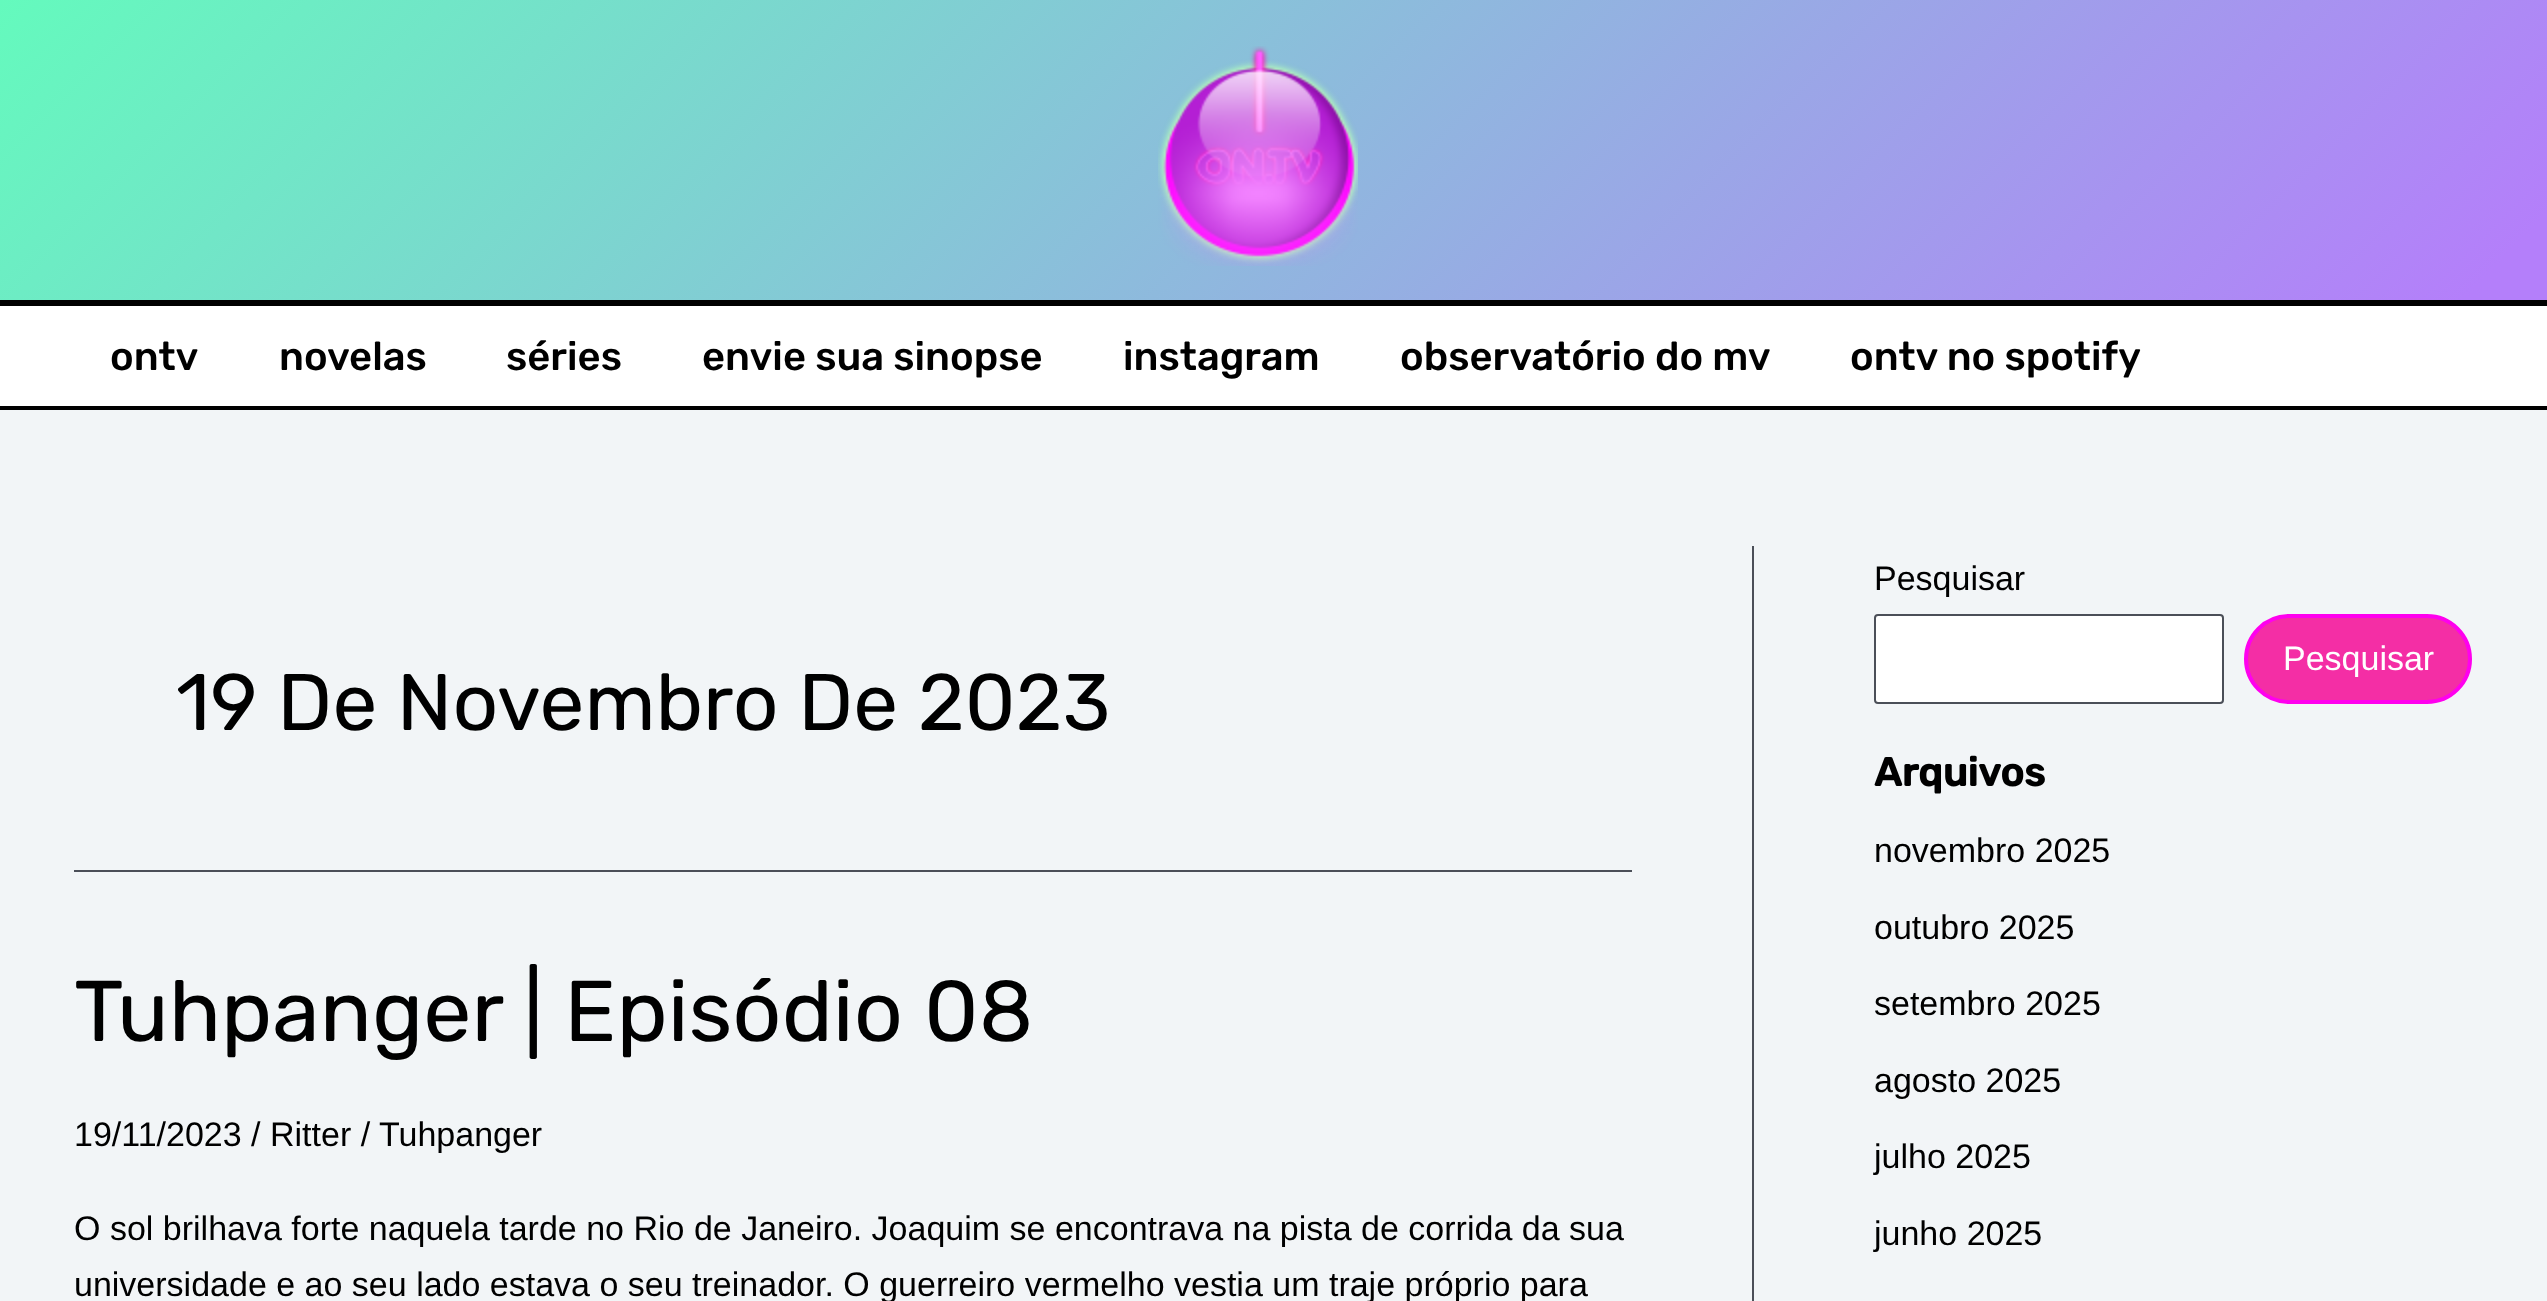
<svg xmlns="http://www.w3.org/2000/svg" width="2547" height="1301">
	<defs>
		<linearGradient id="g1" gradientUnits="userSpaceOnUse" x1="562" y1="-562" x2="1986" y2="862"><stop offset="0" stop-color="#64FABD" /><stop offset="0.97" stop-color="#B47FFA" /></linearGradient>
	</defs>
	<rect width="100%" height="100%" fill="#F2F5F7" />
	<rect x="0" y="0" width="2547" height="300" fill="url(#g1)" />
	<rect x="0" y="300" width="2547" height="6" fill="#000000" />
	<image x="1158" y="46" width="200" height="220" href="assets/img1.png" />
	<rect x="0" y="306" width="2547" height="100" fill="#FFFFFF" />
	<rect x="0" y="406" width="2547" height="4" fill="#000000" />
	<g font-family="Rubik" font-size="40" font-weight="500" fill="#000000">
		<text x="110" y="370">ontv</text>
		<text x="279" y="370">novelas</text>
		<text x="506" y="370">séries</text>
		<text x="702" y="370">envie sua sinopse</text>
		<text x="1123" y="370">instagram</text>
		<text x="1400" y="370">observatório do mv</text>
		<text x="1850" y="370">ontv no spotify</text>
	</g>
	<rect x="1752" y="546" width="2" height="755" fill="#4B4F58" />
	<rect x="74" y="870" width="1558" height="2" fill="#4B4F58" />
	<text x="176" y="730" font-family="Rubik" font-size="80" fill="#000000">19 De Novembro De 2023</text>
	<text x="74" y="1041" font-family="Rubik" font-size="86" fill="#000000">Tuhpanger | Episódio 08</text>
	<g font-family="Liberation Sans" font-size="34" fill="#000000">
		<text x="74" y="1146">19/11/2023 / Ritter /</text>
		<text x="379" y="1146">Tuhpanger</text>
		<text x="74" y="1240">O sol brilhava forte naquela tarde no Rio de Janeiro. Joaquim se encontrava na pista de corrida da sua</text>
		<text x="74" y="1296">universidade e ao seu lado estava o seu treinador. O guerreiro vermelho vestia um traje próprio para</text>
		<text x="1874" y="590">Pesquisar</text>
	</g>
	<rect x="1875" y="615" width="348" height="88" rx="3" fill="#FFFFFF" stroke="#4B4F58" stroke-width="2" />
	<rect x="2246" y="616" width="224" height="86" rx="43" fill="#F42EA5" stroke="#FF00EE" stroke-width="4" />
	<text x="2283" y="670" font-family="Liberation Sans" font-size="34" fill="#FFFFFF">Pesquisar</text>
	<text x="1874" y="786" font-family="Rubik" font-size="40" font-weight="700" fill="#000000">Arquivos</text>
	<g font-family="Liberation Sans" font-size="34" fill="#000000">
		<text x="1874" y="862">novembro 2025</text>
		<text x="1874" y="939">outubro 2025</text>
		<text x="1874" y="1015">setembro 2025</text>
		<text x="1874" y="1092">agosto 2025</text>
		<text x="1874" y="1168">julho 2025</text>
		<text x="1874" y="1245">junho 2025</text>
	</g>
</svg>
